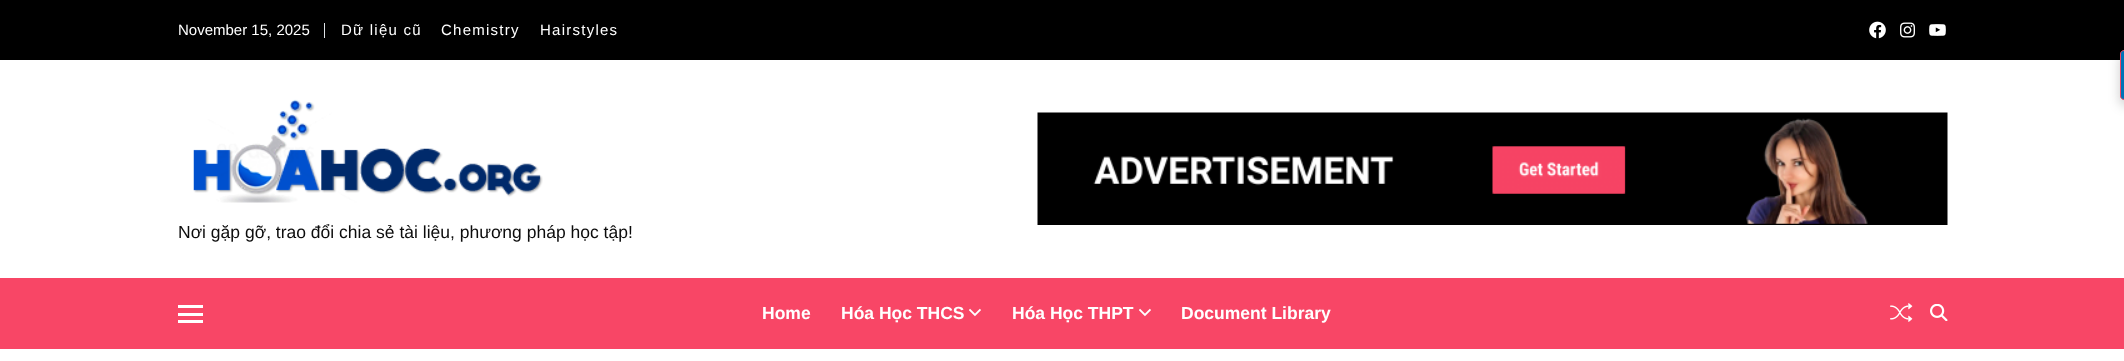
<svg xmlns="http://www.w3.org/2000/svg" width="2124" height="361">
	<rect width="100%" height="100%" fill="#FFFFFF" />
	<rect x="0" y="0" width="2124" height="60" fill="#000000" />
	<rect x="324" y="23" width="1" height="15" fill="#DEE2E6" />
	<text x="178" y="35" font-family="Liberation Sans" font-size="15" fill="#FFFFFF">November 15, 2025</text>
	<g font-family="Liberation Sans" font-size="15" letter-spacing="1.25" fill="#FFFFFF">
		<text x="341" y="35">Dữ liệu cũ</text>
		<text x="441" y="35">Chemistry</text>
		<text x="540" y="35">Hairstyles</text>
	</g>
	<image x="1869" y="21" width="17" height="18" href="assets/img1.png" />
	<image x="1900" y="22" width="15" height="16" href="assets/img2.png" />
	<image x="1929" y="24" width="17" height="12" href="assets/img3.png" />
	<image x="1037" y="112" width="911" height="113" href="assets/img4.png" />
	<image x="193" y="99" width="350" height="104" href="assets/img5.png" />
	<text x="178" y="238" font-family="Liberation Sans" font-size="17.5" fill="#0C0C0C">Nơi gặp gỡ, trao đổi chia sẻ tài liệu, phương pháp học tập!</text>
	<rect x="0" y="278" width="2124" height="71" fill="#F84666" />
	<rect x="178" y="305" width="25" height="3" fill="#FFFFFF" />
	<rect x="178" y="313" width="25" height="3" fill="#FFFFFF" />
	<rect x="178" y="320" width="25" height="3" fill="#FFFFFF" />
	<g font-family="Liberation Sans" font-size="17.5" font-weight="700" fill="#FFFFFF">
		<text x="762" y="319">Home</text>
		<text x="841" y="319">Hóa Học THCS</text>
	</g>
	<image x="969" y="308" width="12" height="9" href="assets/img6.png" />
	<text x="1012" y="319" font-family="Liberation Sans" font-size="17.5" font-weight="700" fill="#FFFFFF">Hóa Học THPT</text>
	<image x="1139" y="308" width="12" height="9" href="assets/img6.png" />
	<text x="1181" y="319" font-family="Liberation Sans" font-size="17.5" font-weight="700" fill="#FFFFFF">Document Library</text>
	<image x="1890" y="303" width="23" height="19" href="assets/img7.png" />
	<image x="1930" y="304" width="18" height="17" href="assets/img8.png" />
	<rect x="2120" y="55" width="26" height="50" rx="4" fill="#000000" fill-opacity="0.2" filter="blur(6px)" />
	<path d="M2124 50.5H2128.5V99.5H2124C2122 99.5 2120.5 98 2120.5 96V54C2120.5 52 2122 50.5 2124 50.5Z" fill="#0073B7" stroke="#F84666" />
</svg>
